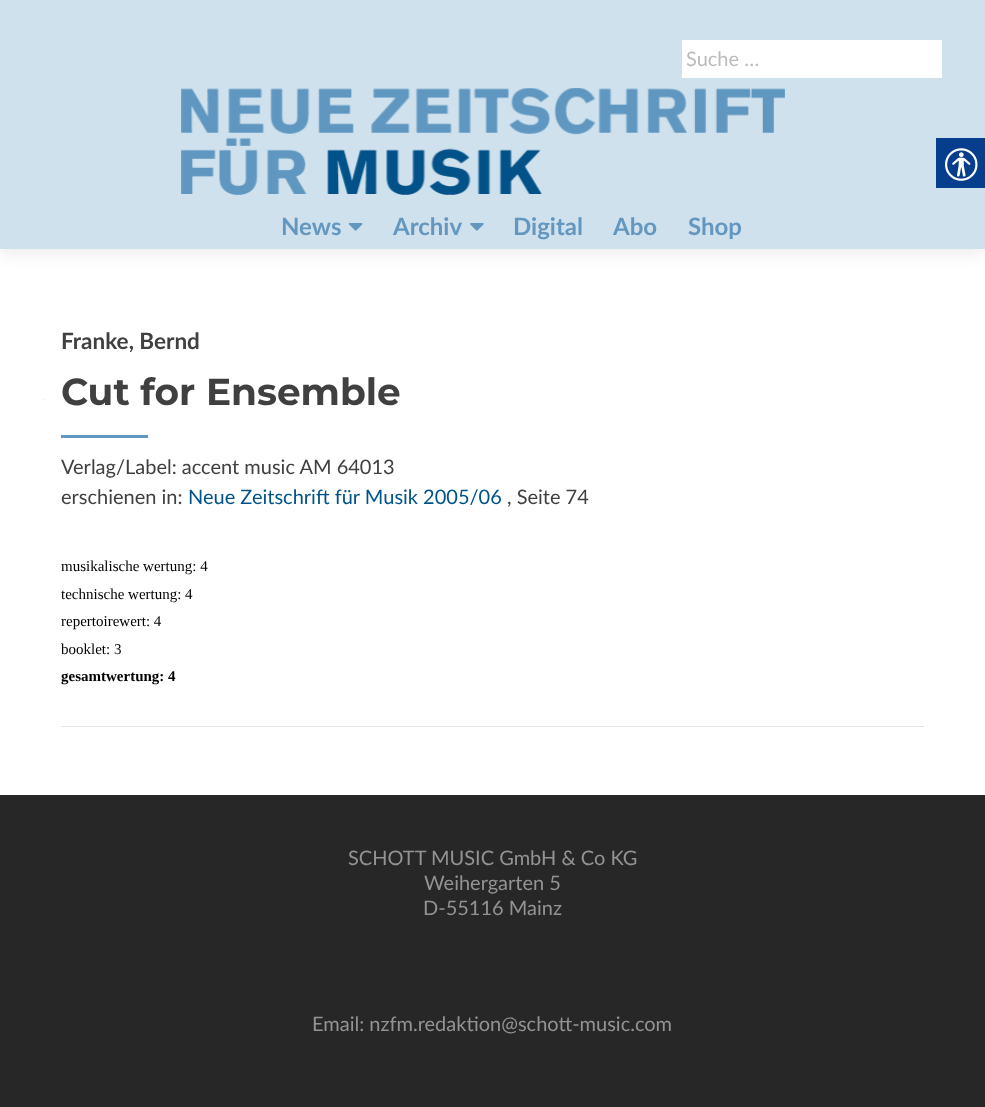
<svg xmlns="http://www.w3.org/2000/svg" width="985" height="1107">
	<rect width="100%" height="100%" fill="#FFFFFF" />
	<rect x="0" y="6" width="985" height="249" fill="#323232" fill-opacity="0.08" filter="blur(7px)" />
	<rect x="0" y="0" width="985" height="249" fill="#CFE1ED" />
	<rect x="682" y="40" width="260" height="38" fill="#FFFFFF" />
	<text x="686" y="66" font-family="Lato" font-size="20" fill="#BBBBBB">Suche …</text>
	<image x="181" y="88" width="604" height="107" href="assets/img1.png" />
	<text x="281" y="235" font-family="Lato" font-size="24" font-weight="700" fill="#6397BF">News</text>
	<image x="348" y="223" width="15" height="8" href="assets/img2.png" />
	<text x="393" y="235" font-family="Lato" font-size="24" font-weight="700" fill="#6397BF">Archiv</text>
	<image x="470" y="223" width="14" height="8" href="assets/img3.png" />
	<g font-family="Lato" font-size="24" font-weight="700" fill="#6397BF">
		<text x="513" y="235">Digital</text>
		<text x="613" y="235">Abo</text>
		<text x="688" y="235">Shop</text>
	</g>
	<rect x="43" y="399" width="1" height="1" fill="#E4E4E4" />
	<rect x="61" y="726" width="863" height="1" fill="#E4E4E4" />
	<text x="61" y="349" font-family="Lato" font-size="22.5" font-weight="700" fill="#404040">Franke, Bernd</text>
	<text x="61" y="405" font-family="Montserrat" font-size="37.5" font-weight="700" fill="#404040">Cut for Ensemble</text>
	<rect x="61" y="435" width="87" height="3" fill="#6397BF" />
	<g font-family="Lato" font-size="20" fill="#404040">
		<text x="61" y="474">Verlag/Label: accent music AM 64013</text>
		<text x="61" y="504">erschienen in:</text>
	</g>
	<text x="188" y="504" font-family="Lato" font-size="20" fill="#005389">Neue Zeitschrift für Musik 2005/06</text>
	<text x="507" y="504" font-family="Lato" font-size="20" fill="#404040">, Seite 74</text>
	<g font-family="Liberation Serif" font-size="15" fill="#000000">
		<text x="61" y="571">musikalische wertung: 4</text>
		<text x="61" y="599">technische wertung: 4</text>
		<text x="61" y="626">repertoirewert: 4</text>
		<text x="61" y="654">booklet: 3</text>
	</g>
	<text x="61" y="681" font-family="Liberation Serif" font-size="15" font-weight="700" fill="#000000">gesamtwertung: 4</text>
	<rect x="0" y="795" width="985" height="312" fill="#272727" />
	<g font-family="Lato" font-size="20" fill="#939393">
		<text x="348" y="865">SCHOTT MUSIC GmbH &amp; Co KG</text>
		<text x="424" y="890">Weihergarten 5</text>
		<text x="423" y="915">D-55116 Mainz</text>
		<text x="312" y="1031">Email: nzfm.redaktion@schott-music.com</text>
	</g>
	<rect x="936" y="138" width="49" height="50" fill="#063D8D" />
	<image x="945" y="148" width="33" height="33" href="assets/img4.png" />
</svg>
